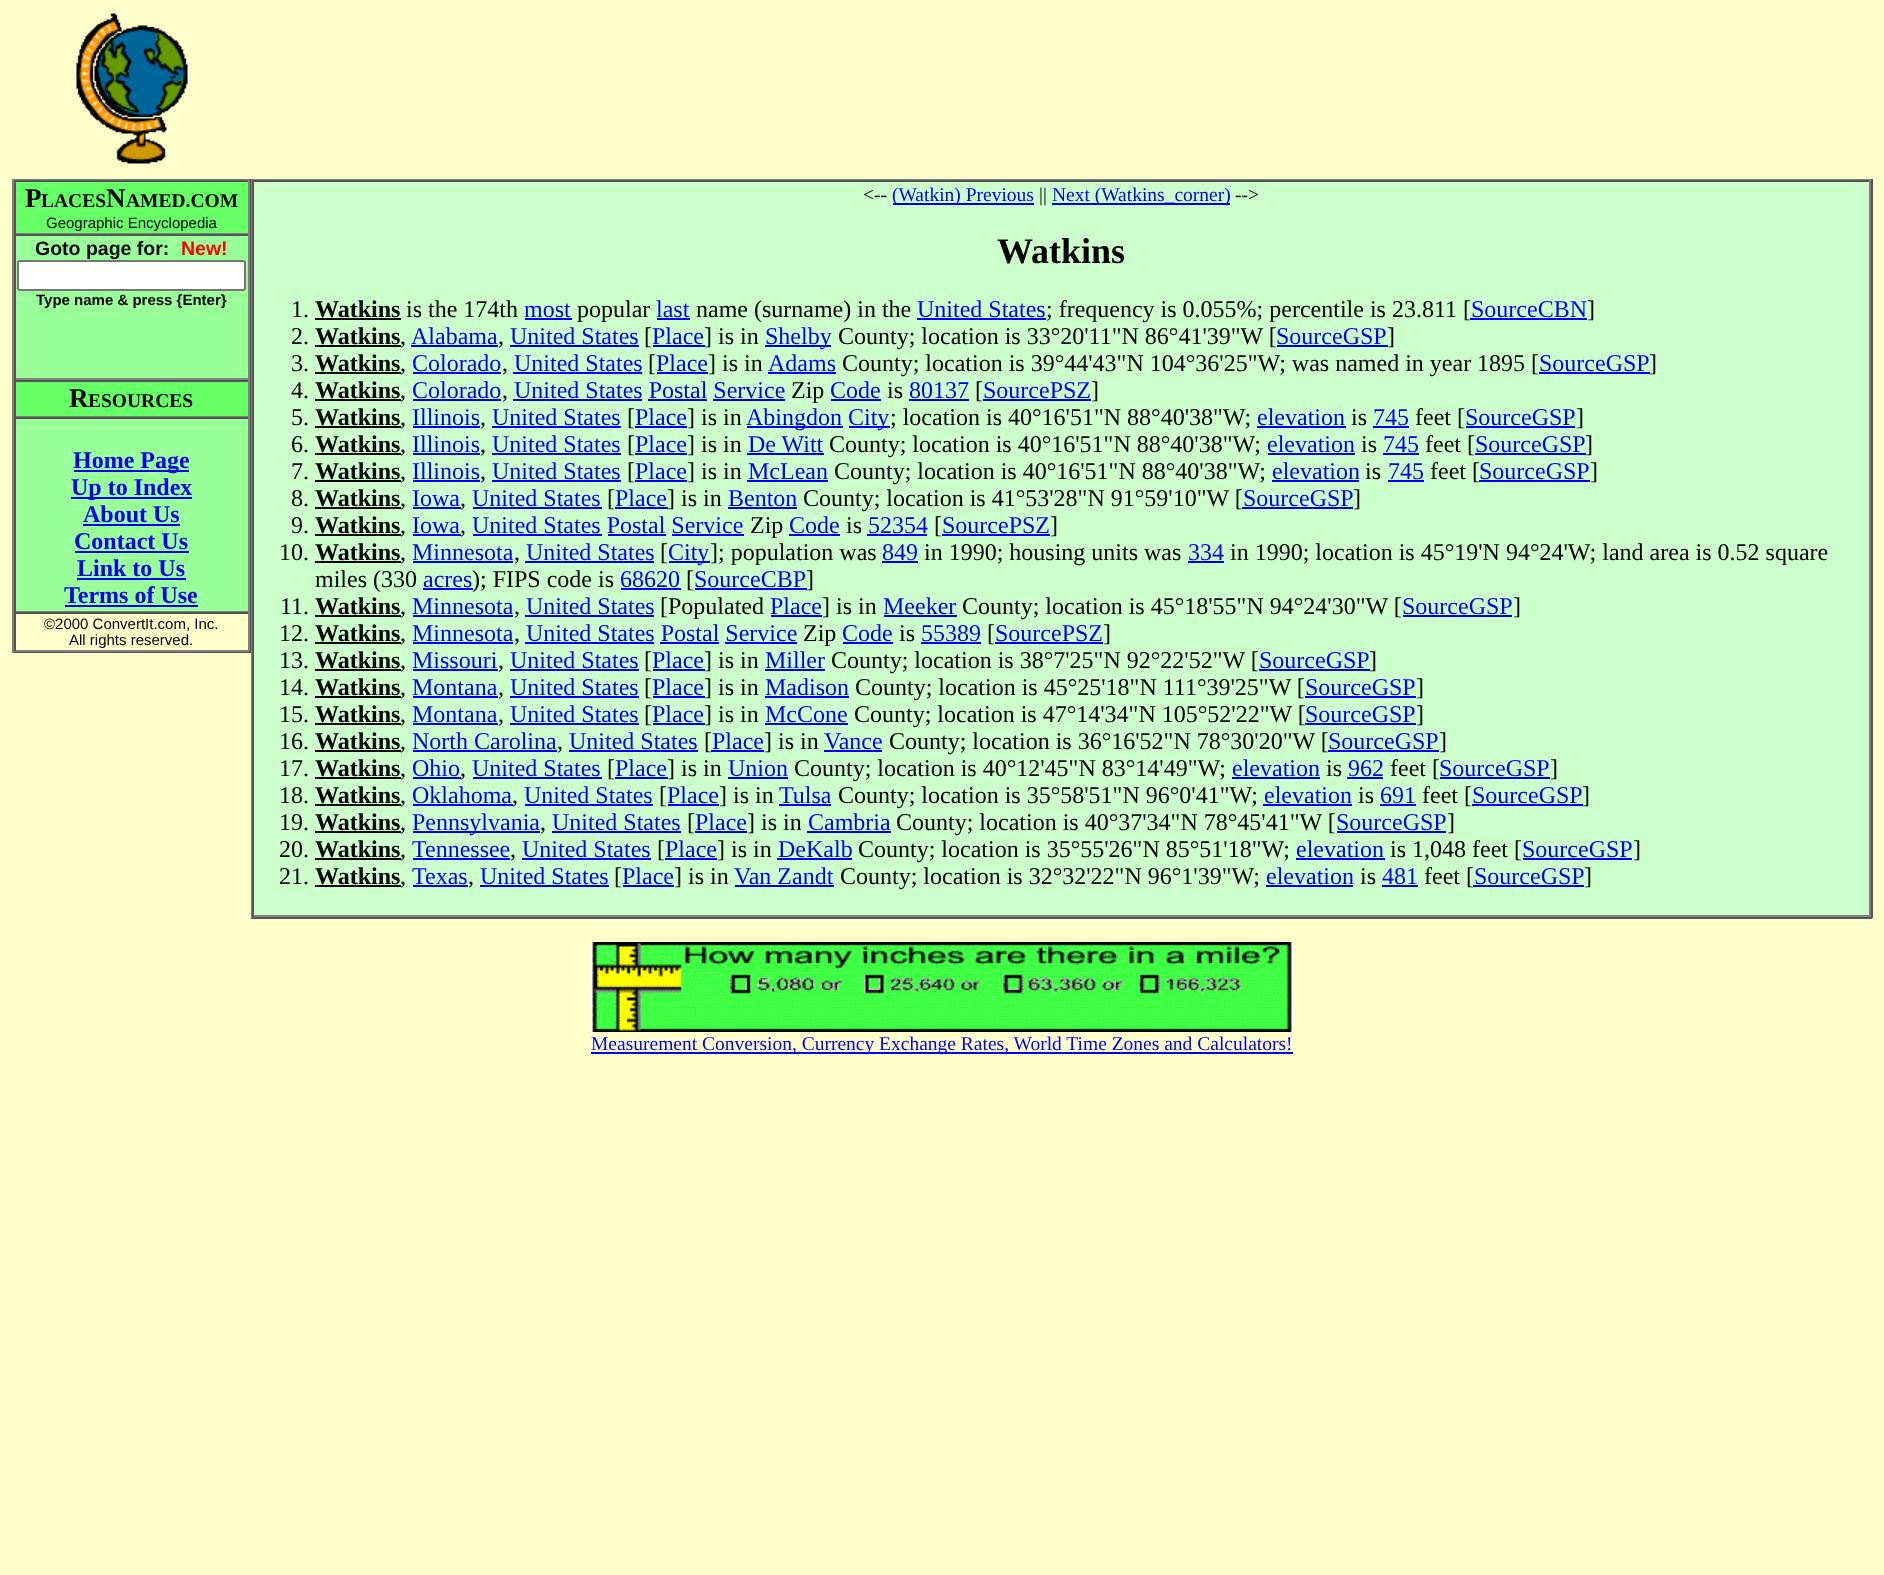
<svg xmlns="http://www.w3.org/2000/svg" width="1884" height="1575">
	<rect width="100%" height="100%" fill="#FFFFCC" />
	<image x="76" y="13" width="112" height="151" href="assets/img1.png" />
	<rect x="12" y="179" width="1860" height="1" fill="#808080" />
	<rect x="249" y="179" width="2" height="474" fill="#555555" />
	<rect x="12" y="651" width="239" height="2" fill="#555555" />
	<rect x="12" y="179" width="2" height="474" fill="#808080" />
	<rect x="16" y="182" width="232" height="51" fill="#66FF66" />
	<rect x="14" y="180" width="235" height="2" fill="#555555" />
	<rect x="248" y="180" width="2" height="54" fill="#808080" />
	<rect x="14" y="233" width="235" height="1" fill="#808080" />
	<rect x="14" y="180" width="2" height="54" fill="#555555" />
	<text x="25" y="207" font-family="Liberation Serif" font-size="27" font-weight="700" fill="#000000">P</text>
	<text x="41" y="207" font-family="Liberation Serif" font-size="19.5" font-weight="700" fill="#000000">LACES</text>
	<text x="106" y="207" font-family="Liberation Serif" font-size="27" font-weight="700" fill="#000000">N</text>
	<text x="126" y="207" font-family="Liberation Serif" font-size="19.5" font-weight="700" fill="#000000">AMED.COM</text>
	<text x="46" y="228" font-family="Liberation Sans" font-size="15" fill="#000000">Geographic Encyclopedia</text>
	<rect x="16" y="236" width="232" height="142" fill="#99FF99" />
	<rect x="14" y="234" width="235" height="2" fill="#555555" />
	<rect x="248" y="234" width="2" height="146" fill="#808080" />
	<rect x="14" y="378" width="235" height="2" fill="#808080" />
	<rect x="14" y="234" width="2" height="146" fill="#555555" />
	<text x="35" y="255" font-family="Liberation Sans" font-size="19.5" font-weight="700" fill="#000000">Goto page for:</text>
	<text x="181" y="255" font-family="Liberation Sans" font-size="19.5" font-weight="700" fill="#FF0000">New!</text>
	<rect x="18" y="261" width="227" height="29" rx="2" fill="#FFFFFF" stroke="#767676" stroke-width="2" />
	<text x="36" y="305" font-family="Liberation Sans" font-size="15" font-weight="700" fill="#000000">Type name &amp; press {Enter}</text>
	<rect x="16" y="382" width="232" height="34" fill="#66FF66" />
	<rect x="14" y="380" width="235" height="2" fill="#555555" />
	<rect x="248" y="380" width="2" height="37" fill="#808080" />
	<rect x="14" y="416" width="235" height="1" fill="#808080" />
	<rect x="14" y="380" width="2" height="37" fill="#555555" />
	<text x="69" y="407" font-family="Liberation Serif" font-size="27" font-weight="700" fill="#000000">R</text>
	<text x="88" y="407" font-family="Liberation Serif" font-size="19.5" font-weight="700" fill="#000000">ESOURCES</text>
	<rect x="16" y="419" width="232" height="192" fill="#99FF99" />
	<rect x="14" y="417" width="235" height="2" fill="#555555" />
	<rect x="248" y="417" width="2" height="195" fill="#808080" />
	<rect x="14" y="611" width="235" height="1" fill="#808080" />
	<rect x="14" y="417" width="2" height="195" fill="#555555" />
	<rect x="74" y="470" width="115" height="2" fill="#0000EE" />
	<text x="73" y="468" font-family="Liberation Serif" font-size="24" font-weight="700" fill="#0000EE">Home Page</text>
	<rect x="71" y="497" width="121" height="2" fill="#0000EE" />
	<g font-family="Liberation Serif" font-size="24" font-weight="700" fill="#0000EE">
		<text x="71" y="495">Up to Index</text>
		<text x="83" y="522">About Us</text>
	</g>
	<rect x="83" y="524" width="97" height="2" fill="#0000EE" />
	<text x="74" y="549" font-family="Liberation Serif" font-size="24" font-weight="700" fill="#0000EE">Contact Us</text>
	<rect x="75" y="551" width="114" height="2" fill="#0000EE" />
	<text x="77" y="576" font-family="Liberation Serif" font-size="24" font-weight="700" fill="#0000EE">Link to Us</text>
	<rect x="77" y="578" width="109" height="2" fill="#0000EE" />
	<text x="64" y="603" font-family="Liberation Serif" font-size="24" font-weight="700" fill="#0000EE">Terms of Use</text>
	<rect x="65" y="605" width="133" height="2" fill="#0000EE" />
	<rect x="14" y="612" width="235" height="2" fill="#555555" />
	<rect x="248" y="612" width="2" height="39" fill="#808080" />
	<rect x="14" y="650" width="235" height="2" fill="#808080" />
	<rect x="14" y="612" width="2" height="39" fill="#555555" />
	<g font-family="Liberation Sans" font-size="15" fill="#000000">
		<text x="44" y="629">©2000 ConvertIt.com, Inc.</text>
		<text x="69" y="645">All rights reserved.</text>
	</g>
	<rect x="1871" y="179" width="2" height="739" fill="#555555" />
	<rect x="251" y="917" width="1621" height="2" fill="#555555" />
	<rect x="251" y="179" width="2" height="739" fill="#808080" />
	<rect x="254" y="182" width="1615" height="733" fill="#CCFFCC" />
	<rect x="252" y="180" width="1619" height="2" fill="#555555" />
	<rect x="1869" y="180" width="2" height="737" fill="#808080" />
	<rect x="252" y="915" width="1619" height="2" fill="#808080" />
	<rect x="252" y="180" width="2" height="737" fill="#555555" />
	<text x="863" y="201" font-family="Liberation Serif" font-size="19.5" fill="#000000">&lt;--</text>
	<rect x="893" y="203" width="141" height="2" fill="#0000EE" />
	<text x="892" y="201" font-family="Liberation Serif" font-size="19.5" fill="#0000EE">(Watkin) Previous</text>
	<text x="1039" y="201" font-family="Liberation Serif" font-size="19.5" fill="#000000">||</text>
	<rect x="1052" y="203" width="178" height="2" fill="#0000EE" />
	<text x="1052" y="201" font-family="Liberation Serif" font-size="19.5" fill="#0000EE">Next (Watkins_corner)</text>
	<text x="1235" y="201" font-family="Liberation Serif" font-size="19.5" fill="#000000">--&gt;</text>
	<text x="997" y="263" font-family="Liberation Serif" font-size="36" font-weight="700" fill="#000000">Watkins</text>
	<text x="291" y="317" font-family="Liberation Serif" font-size="24" fill="#000000">1.</text>
	<text x="315" y="317" font-family="Liberation Serif" font-size="24" font-weight="700" fill="#000000">Watkins</text>
	<rect x="315" y="318" width="86" height="2" fill="#000000" />
	<text x="406" y="317" font-family="Liberation Serif" font-size="24" fill="#000000">is the 174th</text>
	<text x="524" y="317" font-family="Liberation Serif" font-size="24" fill="#0000EE">most</text>
	<rect x="525" y="318" width="47" height="2" fill="#0000EE" />
	<text x="577" y="317" font-family="Liberation Serif" font-size="24" fill="#000000">popular</text>
	<text x="656" y="317" font-family="Liberation Serif" font-size="24" fill="#0000EE">last</text>
	<rect x="657" y="318" width="33" height="2" fill="#0000EE" />
	<text x="696" y="317" font-family="Liberation Serif" font-size="24" fill="#000000">name (surname) in the</text>
	<text x="917" y="317" font-family="Liberation Serif" font-size="24" fill="#0000EE">United States</text>
	<rect x="917" y="318" width="129" height="2" fill="#0000EE" />
	<text x="1046" y="317" font-family="Liberation Serif" font-size="24" fill="#000000">; frequency is 0.055%; percentile is 23.811 [</text>
	<text x="1471" y="317" font-family="Liberation Serif" font-size="24" fill="#0000EE">SourceCBN</text>
	<rect x="1470" y="318" width="117" height="2" fill="#0000EE" />
	<g font-family="Liberation Serif" font-size="24" fill="#000000">
		<text x="1587" y="317">]</text>
		<text x="291" y="344">2.</text>
	</g>
	<text x="315" y="344" font-family="Liberation Serif" font-size="24" font-weight="700" fill="#000000">Watkins</text>
	<rect x="315" y="345" width="86" height="2" fill="#000000" />
	<text x="400" y="344" font-family="Liberation Serif" font-size="24" fill="#000000">,</text>
	<text x="411" y="344" font-family="Liberation Serif" font-size="24" fill="#0000EE">Alabama</text>
	<rect x="411" y="345" width="87" height="2" fill="#0000EE" />
	<text x="498" y="344" font-family="Liberation Serif" font-size="24" fill="#000000">,</text>
	<text x="510" y="344" font-family="Liberation Serif" font-size="24" fill="#0000EE">United States</text>
	<rect x="510" y="345" width="129" height="2" fill="#0000EE" />
	<text x="644" y="344" font-family="Liberation Serif" font-size="24" fill="#000000">[</text>
	<text x="652" y="344" font-family="Liberation Serif" font-size="24" fill="#0000EE">Place</text>
	<rect x="653" y="345" width="52" height="2" fill="#0000EE" />
	<text x="704" y="344" font-family="Liberation Serif" font-size="24" fill="#000000">] is in</text>
	<rect x="765" y="345" width="66" height="2" fill="#0000EE" />
	<text x="765" y="344" font-family="Liberation Serif" font-size="24" fill="#0000EE">Shelby</text>
	<text x="838" y="344" font-family="Liberation Serif" font-size="24" fill="#000000">County; location is 33°20'11"N 86°41'39"W [</text>
	<text x="1276" y="344" font-family="Liberation Serif" font-size="24" fill="#0000EE">SourceGSP</text>
	<rect x="1277" y="345" width="111" height="2" fill="#0000EE" />
	<g font-family="Liberation Serif" font-size="24" fill="#000000">
		<text x="1387" y="344">]</text>
		<text x="291" y="371">3.</text>
	</g>
	<text x="315" y="371" font-family="Liberation Serif" font-size="24" font-weight="700" fill="#000000">Watkins</text>
	<rect x="315" y="372" width="86" height="2" fill="#000000" />
	<text x="400" y="371" font-family="Liberation Serif" font-size="24" fill="#000000">,</text>
	<text x="412" y="371" font-family="Liberation Serif" font-size="24" fill="#0000EE">Colorado</text>
	<rect x="413" y="372" width="88" height="2" fill="#0000EE" />
	<text x="502" y="371" font-family="Liberation Serif" font-size="24" fill="#000000">,</text>
	<text x="514" y="371" font-family="Liberation Serif" font-size="24" fill="#0000EE">United States</text>
	<rect x="513" y="372" width="129" height="2" fill="#0000EE" />
	<text x="648" y="371" font-family="Liberation Serif" font-size="24" fill="#000000">[</text>
	<text x="656" y="371" font-family="Liberation Serif" font-size="24" fill="#0000EE">Place</text>
	<rect x="657" y="372" width="51" height="2" fill="#0000EE" />
	<text x="708" y="371" font-family="Liberation Serif" font-size="24" fill="#000000">] is in</text>
	<text x="768" y="371" font-family="Liberation Serif" font-size="24" fill="#0000EE">Adams</text>
	<rect x="768" y="372" width="68" height="2" fill="#0000EE" />
	<text x="842" y="371" font-family="Liberation Serif" font-size="24" fill="#000000">County; location is 39°44'43"N 104°36'25"W; was named in year 1895 [</text>
	<text x="1539" y="371" font-family="Liberation Serif" font-size="24" fill="#0000EE">SourceGSP</text>
	<rect x="1539" y="372" width="111" height="2" fill="#0000EE" />
	<g font-family="Liberation Serif" font-size="24" fill="#000000">
		<text x="1649" y="371">]</text>
		<text x="291" y="398">4.</text>
	</g>
	<text x="315" y="398" font-family="Liberation Serif" font-size="24" font-weight="700" fill="#000000">Watkins</text>
	<rect x="315" y="399" width="86" height="2" fill="#000000" />
	<text x="400" y="398" font-family="Liberation Serif" font-size="24" fill="#000000">,</text>
	<text x="412" y="398" font-family="Liberation Serif" font-size="24" fill="#0000EE">Colorado</text>
	<rect x="413" y="399" width="88" height="2" fill="#0000EE" />
	<text x="502" y="398" font-family="Liberation Serif" font-size="24" fill="#000000">,</text>
	<text x="514" y="398" font-family="Liberation Serif" font-size="24" fill="#0000EE">United States Postal Service</text>
	<rect x="513" y="399" width="129" height="2" fill="#0000EE" />
	<text x="791" y="398" font-family="Liberation Serif" font-size="24" fill="#000000">Zip</text>
	<text x="830" y="398" font-family="Liberation Serif" font-size="24" fill="#0000EE">Code</text>
	<rect x="831" y="399" width="50" height="2" fill="#0000EE" />
	<text x="887" y="398" font-family="Liberation Serif" font-size="24" fill="#000000">is</text>
	<text x="909" y="398" font-family="Liberation Serif" font-size="24" fill="#0000EE">80137</text>
	<rect x="909" y="399" width="60" height="2" fill="#0000EE" />
	<text x="975" y="398" font-family="Liberation Serif" font-size="24" fill="#000000">[</text>
	<text x="983" y="398" font-family="Liberation Serif" font-size="24" fill="#0000EE">SourcePSZ</text>
	<rect x="983" y="399" width="108" height="2" fill="#0000EE" />
	<text x="1091" y="398" font-family="Liberation Serif" font-size="24" fill="#000000">]</text>
	<rect x="648" y="399" width="59" height="2" fill="#0000EE" />
	<rect x="713" y="399" width="72" height="2" fill="#0000EE" />
	<text x="291" y="425" font-family="Liberation Serif" font-size="24" fill="#000000">5.</text>
	<text x="315" y="425" font-family="Liberation Serif" font-size="24" font-weight="700" fill="#000000">Watkins</text>
	<rect x="315" y="426" width="86" height="2" fill="#000000" />
	<text x="400" y="425" font-family="Liberation Serif" font-size="24" fill="#000000">,</text>
	<text x="412" y="425" font-family="Liberation Serif" font-size="24" fill="#0000EE">Illinois</text>
	<rect x="413" y="426" width="67" height="2" fill="#0000EE" />
	<text x="480" y="425" font-family="Liberation Serif" font-size="24" fill="#000000">,</text>
	<text x="492" y="425" font-family="Liberation Serif" font-size="24" fill="#0000EE">United States</text>
	<rect x="492" y="426" width="129" height="2" fill="#0000EE" />
	<text x="627" y="425" font-family="Liberation Serif" font-size="24" fill="#000000">[</text>
	<text x="635" y="425" font-family="Liberation Serif" font-size="24" fill="#0000EE">Place</text>
	<rect x="635" y="426" width="52" height="2" fill="#0000EE" />
	<text x="687" y="425" font-family="Liberation Serif" font-size="24" fill="#000000">] is in</text>
	<rect x="747" y="426" width="96" height="2" fill="#0000EE" />
	<text x="746" y="425" font-family="Liberation Serif" font-size="24" fill="#0000EE">Abingdon</text>
	<rect x="849" y="426" width="41" height="2" fill="#0000EE" />
	<text x="848" y="425" font-family="Liberation Serif" font-size="24" fill="#0000EE">City</text>
	<text x="890" y="425" font-family="Liberation Serif" font-size="24" fill="#000000">; location is 40°16'51"N 88°40'38"W;</text>
	<text x="1257" y="425" font-family="Liberation Serif" font-size="24" fill="#0000EE">elevation</text>
	<rect x="1257" y="426" width="89" height="2" fill="#0000EE" />
	<text x="1351" y="425" font-family="Liberation Serif" font-size="24" fill="#000000">is</text>
	<text x="1373" y="425" font-family="Liberation Serif" font-size="24" fill="#0000EE">745</text>
	<rect x="1373" y="426" width="36" height="2" fill="#0000EE" />
	<text x="1415" y="425" font-family="Liberation Serif" font-size="24" fill="#000000">feet [</text>
	<text x="1465" y="425" font-family="Liberation Serif" font-size="24" fill="#0000EE">SourceGSP</text>
	<rect x="1466" y="426" width="109" height="2" fill="#0000EE" />
	<g font-family="Liberation Serif" font-size="24" fill="#000000">
		<text x="1576" y="425">]</text>
		<text x="291" y="452">6.</text>
	</g>
	<text x="315" y="452" font-family="Liberation Serif" font-size="24" font-weight="700" fill="#000000">Watkins</text>
	<rect x="315" y="453" width="86" height="2" fill="#000000" />
	<text x="400" y="452" font-family="Liberation Serif" font-size="24" fill="#000000">,</text>
	<text x="412" y="452" font-family="Liberation Serif" font-size="24" fill="#0000EE">Illinois</text>
	<rect x="413" y="453" width="67" height="2" fill="#0000EE" />
	<text x="480" y="452" font-family="Liberation Serif" font-size="24" fill="#000000">,</text>
	<text x="492" y="452" font-family="Liberation Serif" font-size="24" fill="#0000EE">United States</text>
	<rect x="492" y="453" width="129" height="2" fill="#0000EE" />
	<text x="627" y="452" font-family="Liberation Serif" font-size="24" fill="#000000">[</text>
	<text x="635" y="452" font-family="Liberation Serif" font-size="24" fill="#0000EE">Place</text>
	<rect x="635" y="453" width="52" height="2" fill="#0000EE" />
	<text x="687" y="452" font-family="Liberation Serif" font-size="24" fill="#000000">] is in</text>
	<text x="748" y="452" font-family="Liberation Serif" font-size="24" fill="#0000EE">De Witt</text>
	<rect x="747" y="453" width="77" height="2" fill="#0000EE" />
	<text x="829" y="452" font-family="Liberation Serif" font-size="24" fill="#000000">County; location is 40°16'51"N 88°40'38"W;</text>
	<text x="1267" y="452" font-family="Liberation Serif" font-size="24" fill="#0000EE">elevation</text>
	<rect x="1268" y="453" width="87" height="2" fill="#0000EE" />
	<text x="1361" y="452" font-family="Liberation Serif" font-size="24" fill="#000000">is</text>
	<text x="1383" y="452" font-family="Liberation Serif" font-size="24" fill="#0000EE">745</text>
	<rect x="1383" y="453" width="36" height="2" fill="#0000EE" />
	<text x="1425" y="452" font-family="Liberation Serif" font-size="24" fill="#000000">feet [</text>
	<text x="1475" y="452" font-family="Liberation Serif" font-size="24" fill="#0000EE">SourceGSP</text>
	<rect x="1475" y="453" width="111" height="2" fill="#0000EE" />
	<g font-family="Liberation Serif" font-size="24" fill="#000000">
		<text x="1585" y="452">]</text>
		<text x="291" y="479">7.</text>
	</g>
	<text x="315" y="479" font-family="Liberation Serif" font-size="24" font-weight="700" fill="#000000">Watkins</text>
	<rect x="315" y="480" width="86" height="2" fill="#000000" />
	<text x="400" y="479" font-family="Liberation Serif" font-size="24" fill="#000000">,</text>
	<text x="412" y="479" font-family="Liberation Serif" font-size="24" fill="#0000EE">Illinois</text>
	<rect x="413" y="480" width="67" height="2" fill="#0000EE" />
	<text x="480" y="479" font-family="Liberation Serif" font-size="24" fill="#000000">,</text>
	<text x="492" y="479" font-family="Liberation Serif" font-size="24" fill="#0000EE">United States</text>
	<rect x="492" y="480" width="129" height="2" fill="#0000EE" />
	<text x="627" y="479" font-family="Liberation Serif" font-size="24" fill="#000000">[</text>
	<text x="635" y="479" font-family="Liberation Serif" font-size="24" fill="#0000EE">Place</text>
	<rect x="635" y="480" width="52" height="2" fill="#0000EE" />
	<text x="687" y="479" font-family="Liberation Serif" font-size="24" fill="#000000">] is in</text>
	<text x="748" y="479" font-family="Liberation Serif" font-size="24" fill="#0000EE">McLean</text>
	<rect x="747" y="480" width="81" height="2" fill="#0000EE" />
	<text x="834" y="479" font-family="Liberation Serif" font-size="24" fill="#000000">County; location is 40°16'51"N 88°40'38"W;</text>
	<text x="1272" y="479" font-family="Liberation Serif" font-size="24" fill="#0000EE">elevation</text>
	<rect x="1272" y="480" width="87" height="2" fill="#0000EE" />
	<text x="1365" y="479" font-family="Liberation Serif" font-size="24" fill="#000000">is</text>
	<text x="1388" y="479" font-family="Liberation Serif" font-size="24" fill="#0000EE">745</text>
	<rect x="1388" y="480" width="36" height="2" fill="#0000EE" />
	<text x="1430" y="479" font-family="Liberation Serif" font-size="24" fill="#000000">feet [</text>
	<text x="1479" y="479" font-family="Liberation Serif" font-size="24" fill="#0000EE">SourceGSP</text>
	<rect x="1479" y="480" width="111" height="2" fill="#0000EE" />
	<g font-family="Liberation Serif" font-size="24" fill="#000000">
		<text x="1590" y="479">]</text>
		<text x="291" y="506">8.</text>
	</g>
	<text x="315" y="506" font-family="Liberation Serif" font-size="24" font-weight="700" fill="#000000">Watkins</text>
	<rect x="315" y="507" width="86" height="2" fill="#000000" />
	<text x="400" y="506" font-family="Liberation Serif" font-size="24" fill="#000000">,</text>
	<text x="412" y="506" font-family="Liberation Serif" font-size="24" fill="#0000EE">Iowa</text>
	<rect x="413" y="507" width="48" height="2" fill="#0000EE" />
	<text x="460" y="506" font-family="Liberation Serif" font-size="24" fill="#000000">,</text>
	<text x="472" y="506" font-family="Liberation Serif" font-size="24" fill="#0000EE">United States</text>
	<rect x="473" y="507" width="129" height="2" fill="#0000EE" />
	<text x="607" y="506" font-family="Liberation Serif" font-size="24" fill="#000000">[</text>
	<text x="615" y="506" font-family="Liberation Serif" font-size="24" fill="#0000EE">Place</text>
	<rect x="615" y="507" width="53" height="2" fill="#0000EE" />
	<text x="667" y="506" font-family="Liberation Serif" font-size="24" fill="#000000">] is in</text>
	<text x="728" y="506" font-family="Liberation Serif" font-size="24" fill="#0000EE">Benton</text>
	<rect x="728" y="507" width="69" height="2" fill="#0000EE" />
	<text x="803" y="506" font-family="Liberation Serif" font-size="24" fill="#000000">County; location is 41°53'28"N 91°59'10"W [</text>
	<text x="1243" y="506" font-family="Liberation Serif" font-size="24" fill="#0000EE">SourceGSP</text>
	<rect x="1242" y="507" width="111" height="2" fill="#0000EE" />
	<g font-family="Liberation Serif" font-size="24" fill="#000000">
		<text x="1353" y="506">]</text>
		<text x="291" y="533">9.</text>
	</g>
	<text x="315" y="533" font-family="Liberation Serif" font-size="24" font-weight="700" fill="#000000">Watkins</text>
	<rect x="315" y="534" width="86" height="2" fill="#000000" />
	<text x="400" y="533" font-family="Liberation Serif" font-size="24" fill="#000000">,</text>
	<text x="412" y="533" font-family="Liberation Serif" font-size="24" fill="#0000EE">Iowa</text>
	<rect x="413" y="534" width="48" height="2" fill="#0000EE" />
	<text x="460" y="533" font-family="Liberation Serif" font-size="24" fill="#000000">,</text>
	<text x="472" y="533" font-family="Liberation Serif" font-size="24" fill="#0000EE">United States Postal Service</text>
	<rect x="473" y="534" width="129" height="2" fill="#0000EE" />
	<text x="750" y="533" font-family="Liberation Serif" font-size="24" fill="#000000">Zip</text>
	<text x="789" y="533" font-family="Liberation Serif" font-size="24" fill="#0000EE">Code</text>
	<rect x="789" y="534" width="51" height="2" fill="#0000EE" />
	<text x="846" y="533" font-family="Liberation Serif" font-size="24" fill="#000000">is</text>
	<text x="868" y="533" font-family="Liberation Serif" font-size="24" fill="#0000EE">52354</text>
	<rect x="867" y="534" width="60" height="2" fill="#0000EE" />
	<text x="934" y="533" font-family="Liberation Serif" font-size="24" fill="#000000">[</text>
	<text x="942" y="533" font-family="Liberation Serif" font-size="24" fill="#0000EE">SourcePSZ</text>
	<rect x="942" y="534" width="108" height="2" fill="#0000EE" />
	<text x="1050" y="533" font-family="Liberation Serif" font-size="24" fill="#000000">]</text>
	<rect x="608" y="534" width="58" height="2" fill="#0000EE" />
	<rect x="672" y="534" width="72" height="2" fill="#0000EE" />
	<text x="279" y="560" font-family="Liberation Serif" font-size="24" fill="#000000">10.</text>
	<text x="315" y="560" font-family="Liberation Serif" font-size="24" font-weight="700" fill="#000000">Watkins</text>
	<rect x="315" y="561" width="86" height="2" fill="#000000" />
	<text x="400" y="560" font-family="Liberation Serif" font-size="24" fill="#000000">,</text>
	<text x="412" y="560" font-family="Liberation Serif" font-size="24" fill="#0000EE">Minnesota</text>
	<rect x="413" y="561" width="100" height="2" fill="#0000EE" />
	<text x="514" y="560" font-family="Liberation Serif" font-size="24" fill="#000000">,</text>
	<text x="526" y="560" font-family="Liberation Serif" font-size="24" fill="#0000EE">United States</text>
	<rect x="525" y="561" width="129" height="2" fill="#0000EE" />
	<text x="660" y="560" font-family="Liberation Serif" font-size="24" fill="#000000">[</text>
	<rect x="669" y="561" width="41" height="2" fill="#0000EE" />
	<text x="668" y="560" font-family="Liberation Serif" font-size="24" fill="#0000EE">City</text>
	<text x="710" y="560" font-family="Liberation Serif" font-size="24" fill="#000000">]; population was</text>
	<text x="882" y="560" font-family="Liberation Serif" font-size="24" fill="#0000EE">849</text>
	<rect x="882" y="561" width="36" height="2" fill="#0000EE" />
	<text x="924" y="560" font-family="Liberation Serif" font-size="24" fill="#000000">in 1990; housing units was</text>
	<text x="1188" y="560" font-family="Liberation Serif" font-size="24" fill="#0000EE">334</text>
	<rect x="1188" y="561" width="36" height="2" fill="#0000EE" />
	<g font-family="Liberation Serif" font-size="24" fill="#000000">
		<text x="1230" y="560">in 1990; location is 45°19'N 94°24'W; land area is 0.52 square</text>
		<text x="315" y="587">miles (330</text>
	</g>
	<text x="423" y="587" font-family="Liberation Serif" font-size="24" fill="#0000EE">acres</text>
	<rect x="423" y="588" width="50" height="2" fill="#0000EE" />
	<text x="472" y="587" font-family="Liberation Serif" font-size="24" fill="#000000">); FIPS code is</text>
	<text x="620" y="587" font-family="Liberation Serif" font-size="24" fill="#0000EE">68620</text>
	<rect x="621" y="588" width="60" height="2" fill="#0000EE" />
	<text x="686" y="587" font-family="Liberation Serif" font-size="24" fill="#000000">[</text>
	<text x="694" y="587" font-family="Liberation Serif" font-size="24" fill="#0000EE">SourceCBP</text>
	<rect x="695" y="588" width="112" height="2" fill="#0000EE" />
	<g font-family="Liberation Serif" font-size="24" fill="#000000">
		<text x="806" y="587">]</text>
		<text x="280" y="614">11.</text>
	</g>
	<text x="315" y="614" font-family="Liberation Serif" font-size="24" font-weight="700" fill="#000000">Watkins</text>
	<rect x="315" y="615" width="86" height="2" fill="#000000" />
	<text x="400" y="614" font-family="Liberation Serif" font-size="24" fill="#000000">,</text>
	<text x="412" y="614" font-family="Liberation Serif" font-size="24" fill="#0000EE">Minnesota</text>
	<rect x="413" y="615" width="100" height="2" fill="#0000EE" />
	<text x="514" y="614" font-family="Liberation Serif" font-size="24" fill="#000000">,</text>
	<text x="526" y="614" font-family="Liberation Serif" font-size="24" fill="#0000EE">United States</text>
	<rect x="525" y="615" width="129" height="2" fill="#0000EE" />
	<text x="660" y="614" font-family="Liberation Serif" font-size="24" fill="#000000">[Populated</text>
	<text x="770" y="614" font-family="Liberation Serif" font-size="24" fill="#0000EE">Place</text>
	<rect x="771" y="615" width="51" height="2" fill="#0000EE" />
	<text x="822" y="614" font-family="Liberation Serif" font-size="24" fill="#000000">] is in</text>
	<text x="883" y="614" font-family="Liberation Serif" font-size="24" fill="#0000EE">Meeker</text>
	<rect x="884" y="615" width="73" height="2" fill="#0000EE" />
	<text x="962" y="614" font-family="Liberation Serif" font-size="24" fill="#000000">County; location is 45°18'55"N 94°24'30"W [</text>
	<text x="1402" y="614" font-family="Liberation Serif" font-size="24" fill="#0000EE">SourceGSP</text>
	<rect x="1403" y="615" width="109" height="2" fill="#0000EE" />
	<g font-family="Liberation Serif" font-size="24" fill="#000000">
		<text x="1513" y="614">]</text>
		<text x="279" y="641">12.</text>
	</g>
	<text x="315" y="641" font-family="Liberation Serif" font-size="24" font-weight="700" fill="#000000">Watkins</text>
	<rect x="315" y="642" width="86" height="2" fill="#000000" />
	<text x="400" y="641" font-family="Liberation Serif" font-size="24" fill="#000000">,</text>
	<text x="412" y="641" font-family="Liberation Serif" font-size="24" fill="#0000EE">Minnesota</text>
	<rect x="413" y="642" width="100" height="2" fill="#0000EE" />
	<text x="514" y="641" font-family="Liberation Serif" font-size="24" fill="#000000">,</text>
	<text x="526" y="641" font-family="Liberation Serif" font-size="24" fill="#0000EE">United States Postal Service</text>
	<rect x="525" y="642" width="129" height="2" fill="#0000EE" />
	<text x="803" y="641" font-family="Liberation Serif" font-size="24" fill="#000000">Zip</text>
	<text x="842" y="641" font-family="Liberation Serif" font-size="24" fill="#0000EE">Code</text>
	<rect x="843" y="642" width="50" height="2" fill="#0000EE" />
	<text x="899" y="641" font-family="Liberation Serif" font-size="24" fill="#000000">is</text>
	<text x="921" y="641" font-family="Liberation Serif" font-size="24" fill="#0000EE">55389</text>
	<rect x="921" y="642" width="60" height="2" fill="#0000EE" />
	<text x="987" y="641" font-family="Liberation Serif" font-size="24" fill="#000000">[</text>
	<text x="995" y="641" font-family="Liberation Serif" font-size="24" fill="#0000EE">SourcePSZ</text>
	<rect x="995" y="642" width="108" height="2" fill="#0000EE" />
	<text x="1103" y="641" font-family="Liberation Serif" font-size="24" fill="#000000">]</text>
	<rect x="660" y="642" width="59" height="2" fill="#0000EE" />
	<rect x="725" y="642" width="72" height="2" fill="#0000EE" />
	<text x="279" y="668" font-family="Liberation Serif" font-size="24" fill="#000000">13.</text>
	<text x="315" y="668" font-family="Liberation Serif" font-size="24" font-weight="700" fill="#000000">Watkins</text>
	<rect x="315" y="669" width="86" height="2" fill="#000000" />
	<text x="400" y="668" font-family="Liberation Serif" font-size="24" fill="#000000">,</text>
	<text x="412" y="668" font-family="Liberation Serif" font-size="24" fill="#0000EE">Missouri</text>
	<rect x="413" y="669" width="85" height="2" fill="#0000EE" />
	<text x="498" y="668" font-family="Liberation Serif" font-size="24" fill="#000000">,</text>
	<text x="510" y="668" font-family="Liberation Serif" font-size="24" fill="#0000EE">United States</text>
	<rect x="510" y="669" width="129" height="2" fill="#0000EE" />
	<text x="644" y="668" font-family="Liberation Serif" font-size="24" fill="#000000">[</text>
	<text x="652" y="668" font-family="Liberation Serif" font-size="24" fill="#0000EE">Place</text>
	<rect x="653" y="669" width="52" height="2" fill="#0000EE" />
	<text x="704" y="668" font-family="Liberation Serif" font-size="24" fill="#000000">] is in</text>
	<text x="765" y="668" font-family="Liberation Serif" font-size="24" fill="#0000EE">Miller</text>
	<rect x="765" y="669" width="60" height="2" fill="#0000EE" />
	<text x="831" y="668" font-family="Liberation Serif" font-size="24" fill="#000000">County; location is 38°7'25"N 92°22'52"W [</text>
	<text x="1259" y="668" font-family="Liberation Serif" font-size="24" fill="#0000EE">SourceGSP</text>
	<rect x="1259" y="669" width="111" height="2" fill="#0000EE" />
	<g font-family="Liberation Serif" font-size="24" fill="#000000">
		<text x="1369" y="668">]</text>
		<text x="279" y="695">14.</text>
	</g>
	<text x="315" y="695" font-family="Liberation Serif" font-size="24" font-weight="700" fill="#000000">Watkins</text>
	<rect x="315" y="696" width="86" height="2" fill="#000000" />
	<text x="400" y="695" font-family="Liberation Serif" font-size="24" fill="#000000">,</text>
	<text x="412" y="695" font-family="Liberation Serif" font-size="24" fill="#0000EE">Montana</text>
	<rect x="413" y="696" width="85" height="2" fill="#0000EE" />
	<text x="498" y="695" font-family="Liberation Serif" font-size="24" fill="#000000">,</text>
	<text x="510" y="695" font-family="Liberation Serif" font-size="24" fill="#0000EE">United States</text>
	<rect x="510" y="696" width="129" height="2" fill="#0000EE" />
	<text x="644" y="695" font-family="Liberation Serif" font-size="24" fill="#000000">[</text>
	<text x="652" y="695" font-family="Liberation Serif" font-size="24" fill="#0000EE">Place</text>
	<rect x="653" y="696" width="52" height="2" fill="#0000EE" />
	<text x="704" y="695" font-family="Liberation Serif" font-size="24" fill="#000000">] is in</text>
	<text x="765" y="695" font-family="Liberation Serif" font-size="24" fill="#0000EE">Madison</text>
	<rect x="765" y="696" width="84" height="2" fill="#0000EE" />
	<text x="855" y="695" font-family="Liberation Serif" font-size="24" fill="#000000">County; location is 45°25'18"N 111°39'25"W [</text>
	<text x="1305" y="695" font-family="Liberation Serif" font-size="24" fill="#0000EE">SourceGSP</text>
	<rect x="1305" y="696" width="111" height="2" fill="#0000EE" />
	<g font-family="Liberation Serif" font-size="24" fill="#000000">
		<text x="1416" y="695">]</text>
		<text x="279" y="722">15.</text>
	</g>
	<text x="315" y="722" font-family="Liberation Serif" font-size="24" font-weight="700" fill="#000000">Watkins</text>
	<rect x="315" y="723" width="86" height="2" fill="#000000" />
	<text x="400" y="722" font-family="Liberation Serif" font-size="24" fill="#000000">,</text>
	<text x="412" y="722" font-family="Liberation Serif" font-size="24" fill="#0000EE">Montana</text>
	<rect x="413" y="723" width="85" height="2" fill="#0000EE" />
	<text x="498" y="722" font-family="Liberation Serif" font-size="24" fill="#000000">,</text>
	<text x="510" y="722" font-family="Liberation Serif" font-size="24" fill="#0000EE">United States</text>
	<rect x="510" y="723" width="129" height="2" fill="#0000EE" />
	<text x="644" y="722" font-family="Liberation Serif" font-size="24" fill="#000000">[</text>
	<text x="652" y="722" font-family="Liberation Serif" font-size="24" fill="#0000EE">Place</text>
	<rect x="653" y="723" width="52" height="2" fill="#0000EE" />
	<text x="704" y="722" font-family="Liberation Serif" font-size="24" fill="#000000">] is in</text>
	<text x="765" y="722" font-family="Liberation Serif" font-size="24" fill="#0000EE">McCone</text>
	<rect x="765" y="723" width="83" height="2" fill="#0000EE" />
	<text x="854" y="722" font-family="Liberation Serif" font-size="24" fill="#000000">County; location is 47°14'34"N 105°52'22"W [</text>
	<text x="1305" y="722" font-family="Liberation Serif" font-size="24" fill="#0000EE">SourceGSP</text>
	<rect x="1305" y="723" width="111" height="2" fill="#0000EE" />
	<g font-family="Liberation Serif" font-size="24" fill="#000000">
		<text x="1416" y="722">]</text>
		<text x="279" y="749">16.</text>
	</g>
	<text x="315" y="749" font-family="Liberation Serif" font-size="24" font-weight="700" fill="#000000">Watkins</text>
	<rect x="315" y="750" width="86" height="2" fill="#000000" />
	<text x="400" y="749" font-family="Liberation Serif" font-size="24" fill="#000000">,</text>
	<text x="412" y="749" font-family="Liberation Serif" font-size="24" fill="#0000EE">North Carolina</text>
	<rect x="413" y="750" width="144" height="2" fill="#0000EE" />
	<text x="557" y="749" font-family="Liberation Serif" font-size="24" fill="#000000">,</text>
	<text x="569" y="749" font-family="Liberation Serif" font-size="24" fill="#0000EE">United States</text>
	<rect x="569" y="750" width="129" height="2" fill="#0000EE" />
	<text x="704" y="749" font-family="Liberation Serif" font-size="24" fill="#000000">[</text>
	<text x="712" y="749" font-family="Liberation Serif" font-size="24" fill="#0000EE">Place</text>
	<rect x="711" y="750" width="53" height="2" fill="#0000EE" />
	<text x="764" y="749" font-family="Liberation Serif" font-size="24" fill="#000000">] is in</text>
	<text x="824" y="749" font-family="Liberation Serif" font-size="24" fill="#0000EE">Vance</text>
	<rect x="824" y="750" width="58" height="2" fill="#0000EE" />
	<text x="889" y="749" font-family="Liberation Serif" font-size="24" fill="#000000">County; location is 36°16'52"N 78°30'20"W [</text>
	<text x="1328" y="749" font-family="Liberation Serif" font-size="24" fill="#0000EE">SourceGSP</text>
	<rect x="1328" y="750" width="111" height="2" fill="#0000EE" />
	<g font-family="Liberation Serif" font-size="24" fill="#000000">
		<text x="1439" y="749">]</text>
		<text x="279" y="776">17.</text>
	</g>
	<text x="315" y="776" font-family="Liberation Serif" font-size="24" font-weight="700" fill="#000000">Watkins</text>
	<rect x="315" y="777" width="86" height="2" fill="#000000" />
	<text x="400" y="776" font-family="Liberation Serif" font-size="24" fill="#000000">,</text>
	<text x="412" y="776" font-family="Liberation Serif" font-size="24" fill="#0000EE">Ohio</text>
	<rect x="413" y="777" width="48" height="2" fill="#0000EE" />
	<text x="460" y="776" font-family="Liberation Serif" font-size="24" fill="#000000">,</text>
	<text x="472" y="776" font-family="Liberation Serif" font-size="24" fill="#0000EE">United States</text>
	<rect x="473" y="777" width="129" height="2" fill="#0000EE" />
	<text x="607" y="776" font-family="Liberation Serif" font-size="24" fill="#000000">[</text>
	<text x="615" y="776" font-family="Liberation Serif" font-size="24" fill="#0000EE">Place</text>
	<rect x="615" y="777" width="53" height="2" fill="#0000EE" />
	<text x="667" y="776" font-family="Liberation Serif" font-size="24" fill="#000000">] is in</text>
	<text x="728" y="776" font-family="Liberation Serif" font-size="24" fill="#0000EE">Union</text>
	<rect x="728" y="777" width="60" height="2" fill="#0000EE" />
	<text x="794" y="776" font-family="Liberation Serif" font-size="24" fill="#000000">County; location is 40°12'45"N 83°14'49"W;</text>
	<text x="1232" y="776" font-family="Liberation Serif" font-size="24" fill="#0000EE">elevation</text>
	<rect x="1232" y="777" width="88" height="2" fill="#0000EE" />
	<text x="1326" y="776" font-family="Liberation Serif" font-size="24" fill="#000000">is</text>
	<text x="1348" y="776" font-family="Liberation Serif" font-size="24" fill="#0000EE">962</text>
	<rect x="1347" y="777" width="36" height="2" fill="#0000EE" />
	<text x="1390" y="776" font-family="Liberation Serif" font-size="24" fill="#000000">feet [</text>
	<text x="1439" y="776" font-family="Liberation Serif" font-size="24" fill="#0000EE">SourceGSP</text>
	<rect x="1440" y="777" width="110" height="2" fill="#0000EE" />
	<g font-family="Liberation Serif" font-size="24" fill="#000000">
		<text x="1550" y="776">]</text>
		<text x="279" y="803">18.</text>
	</g>
	<text x="315" y="803" font-family="Liberation Serif" font-size="24" font-weight="700" fill="#000000">Watkins</text>
	<rect x="315" y="804" width="86" height="2" fill="#000000" />
	<text x="400" y="803" font-family="Liberation Serif" font-size="24" fill="#000000">,</text>
	<text x="412" y="803" font-family="Liberation Serif" font-size="24" fill="#0000EE">Oklahoma</text>
	<rect x="413" y="804" width="100" height="2" fill="#0000EE" />
	<text x="512" y="803" font-family="Liberation Serif" font-size="24" fill="#000000">,</text>
	<text x="524" y="803" font-family="Liberation Serif" font-size="24" fill="#0000EE">United States</text>
	<rect x="525" y="804" width="128" height="2" fill="#0000EE" />
	<text x="659" y="803" font-family="Liberation Serif" font-size="24" fill="#000000">[</text>
	<text x="667" y="803" font-family="Liberation Serif" font-size="24" fill="#0000EE">Place</text>
	<rect x="668" y="804" width="51" height="2" fill="#0000EE" />
	<text x="719" y="803" font-family="Liberation Serif" font-size="24" fill="#000000">] is in</text>
	<text x="779" y="803" font-family="Liberation Serif" font-size="24" fill="#0000EE">Tulsa</text>
	<rect x="779" y="804" width="52" height="2" fill="#0000EE" />
	<text x="838" y="803" font-family="Liberation Serif" font-size="24" fill="#000000">County; location is 35°58'51"N 96°0'41"W;</text>
	<text x="1264" y="803" font-family="Liberation Serif" font-size="24" fill="#0000EE">elevation</text>
	<rect x="1263" y="804" width="89" height="2" fill="#0000EE" />
	<text x="1358" y="803" font-family="Liberation Serif" font-size="24" fill="#000000">is</text>
	<text x="1380" y="803" font-family="Liberation Serif" font-size="24" fill="#0000EE">691</text>
	<rect x="1380" y="804" width="36" height="2" fill="#0000EE" />
	<text x="1422" y="803" font-family="Liberation Serif" font-size="24" fill="#000000">feet [</text>
	<text x="1472" y="803" font-family="Liberation Serif" font-size="24" fill="#0000EE">SourceGSP</text>
	<rect x="1472" y="804" width="111" height="2" fill="#0000EE" />
	<g font-family="Liberation Serif" font-size="24" fill="#000000">
		<text x="1582" y="803">]</text>
		<text x="279" y="830">19.</text>
	</g>
	<text x="315" y="830" font-family="Liberation Serif" font-size="24" font-weight="700" fill="#000000">Watkins</text>
	<rect x="315" y="831" width="86" height="2" fill="#000000" />
	<text x="400" y="830" font-family="Liberation Serif" font-size="24" fill="#000000">,</text>
	<rect x="413" y="831" width="127" height="2" fill="#0000EE" />
	<text x="412" y="830" font-family="Liberation Serif" font-size="24" fill="#0000EE">Pennsylvania</text>
	<text x="540" y="830" font-family="Liberation Serif" font-size="24" fill="#000000">,</text>
	<text x="552" y="830" font-family="Liberation Serif" font-size="24" fill="#0000EE">United States</text>
	<rect x="552" y="831" width="129" height="2" fill="#0000EE" />
	<text x="687" y="830" font-family="Liberation Serif" font-size="24" fill="#000000">[</text>
	<text x="695" y="830" font-family="Liberation Serif" font-size="24" fill="#0000EE">Place</text>
	<rect x="695" y="831" width="52" height="2" fill="#0000EE" />
	<text x="747" y="830" font-family="Liberation Serif" font-size="24" fill="#000000">] is in</text>
	<text x="808" y="830" font-family="Liberation Serif" font-size="24" fill="#0000EE">Cambria</text>
	<rect x="807" y="831" width="84" height="2" fill="#0000EE" />
	<text x="896" y="830" font-family="Liberation Serif" font-size="24" fill="#000000">County; location is 40°37'34"N 78°45'41"W [</text>
	<text x="1336" y="830" font-family="Liberation Serif" font-size="24" fill="#0000EE">SourceGSP</text>
	<rect x="1337" y="831" width="109" height="2" fill="#0000EE" />
	<g font-family="Liberation Serif" font-size="24" fill="#000000">
		<text x="1447" y="830">]</text>
		<text x="279" y="857">20.</text>
	</g>
	<text x="315" y="857" font-family="Liberation Serif" font-size="24" font-weight="700" fill="#000000">Watkins</text>
	<rect x="315" y="858" width="86" height="2" fill="#000000" />
	<text x="400" y="857" font-family="Liberation Serif" font-size="24" fill="#000000">,</text>
	<text x="412" y="857" font-family="Liberation Serif" font-size="24" fill="#0000EE">Tennessee</text>
	<rect x="413" y="858" width="97" height="2" fill="#0000EE" />
	<text x="510" y="857" font-family="Liberation Serif" font-size="24" fill="#000000">,</text>
	<text x="522" y="857" font-family="Liberation Serif" font-size="24" fill="#0000EE">United States</text>
	<rect x="522" y="858" width="129" height="2" fill="#0000EE" />
	<text x="657" y="857" font-family="Liberation Serif" font-size="24" fill="#000000">[</text>
	<text x="665" y="857" font-family="Liberation Serif" font-size="24" fill="#0000EE">Place</text>
	<rect x="665" y="858" width="52" height="2" fill="#0000EE" />
	<text x="717" y="857" font-family="Liberation Serif" font-size="24" fill="#000000">] is in</text>
	<text x="778" y="857" font-family="Liberation Serif" font-size="24" fill="#0000EE">DeKalb</text>
	<rect x="777" y="858" width="75" height="2" fill="#0000EE" />
	<text x="858" y="857" font-family="Liberation Serif" font-size="24" fill="#000000">County; location is 35°55'26"N 85°51'18"W;</text>
	<text x="1296" y="857" font-family="Liberation Serif" font-size="24" fill="#0000EE">elevation</text>
	<rect x="1296" y="858" width="89" height="2" fill="#0000EE" />
	<text x="1390" y="857" font-family="Liberation Serif" font-size="24" fill="#000000">is 1,048 feet [</text>
	<text x="1522" y="857" font-family="Liberation Serif" font-size="24" fill="#0000EE">SourceGSP</text>
	<rect x="1523" y="858" width="109" height="2" fill="#0000EE" />
	<g font-family="Liberation Serif" font-size="24" fill="#000000">
		<text x="1633" y="857">]</text>
		<text x="279" y="884">21.</text>
	</g>
	<text x="315" y="884" font-family="Liberation Serif" font-size="24" font-weight="700" fill="#000000">Watkins</text>
	<rect x="315" y="885" width="86" height="2" fill="#000000" />
	<text x="400" y="884" font-family="Liberation Serif" font-size="24" fill="#000000">,</text>
	<text x="412" y="884" font-family="Liberation Serif" font-size="24" fill="#0000EE">Texas</text>
	<rect x="413" y="885" width="55" height="2" fill="#0000EE" />
	<text x="468" y="884" font-family="Liberation Serif" font-size="24" fill="#000000">,</text>
	<text x="480" y="884" font-family="Liberation Serif" font-size="24" fill="#0000EE">United States</text>
	<rect x="480" y="885" width="129" height="2" fill="#0000EE" />
	<text x="614" y="884" font-family="Liberation Serif" font-size="24" fill="#000000">[</text>
	<text x="622" y="884" font-family="Liberation Serif" font-size="24" fill="#0000EE">Place</text>
	<rect x="623" y="885" width="51" height="2" fill="#0000EE" />
	<text x="674" y="884" font-family="Liberation Serif" font-size="24" fill="#000000">] is in</text>
	<text x="734" y="884" font-family="Liberation Serif" font-size="24" fill="#0000EE">Van Zandt</text>
	<rect x="735" y="885" width="99" height="2" fill="#0000EE" />
	<text x="840" y="884" font-family="Liberation Serif" font-size="24" fill="#000000">County; location is 32°32'22"N 96°1'39"W;</text>
	<text x="1266" y="884" font-family="Liberation Serif" font-size="24" fill="#0000EE">elevation</text>
	<rect x="1266" y="885" width="87" height="2" fill="#0000EE" />
	<text x="1360" y="884" font-family="Liberation Serif" font-size="24" fill="#000000">is</text>
	<text x="1382" y="884" font-family="Liberation Serif" font-size="24" fill="#0000EE">481</text>
	<rect x="1382" y="885" width="36" height="2" fill="#0000EE" />
	<text x="1424" y="884" font-family="Liberation Serif" font-size="24" fill="#000000">feet [</text>
	<text x="1474" y="884" font-family="Liberation Serif" font-size="24" fill="#0000EE">SourceGSP</text>
	<rect x="1473" y="885" width="111" height="2" fill="#0000EE" />
	<text x="1584" y="884" font-family="Liberation Serif" font-size="24" fill="#000000">]</text>
	<image x="591" y="942" width="702" height="90" href="assets/img2.png" />
	<rect x="591" y="1052" width="702" height="2" fill="#0000EE" />
	<text x="591" y="1050" font-family="Liberation Serif" font-size="19.5" fill="#0000EE">Measurement Conversion, Currency Exchange Rates, World Time Zones and Calculators!</text>
</svg>
